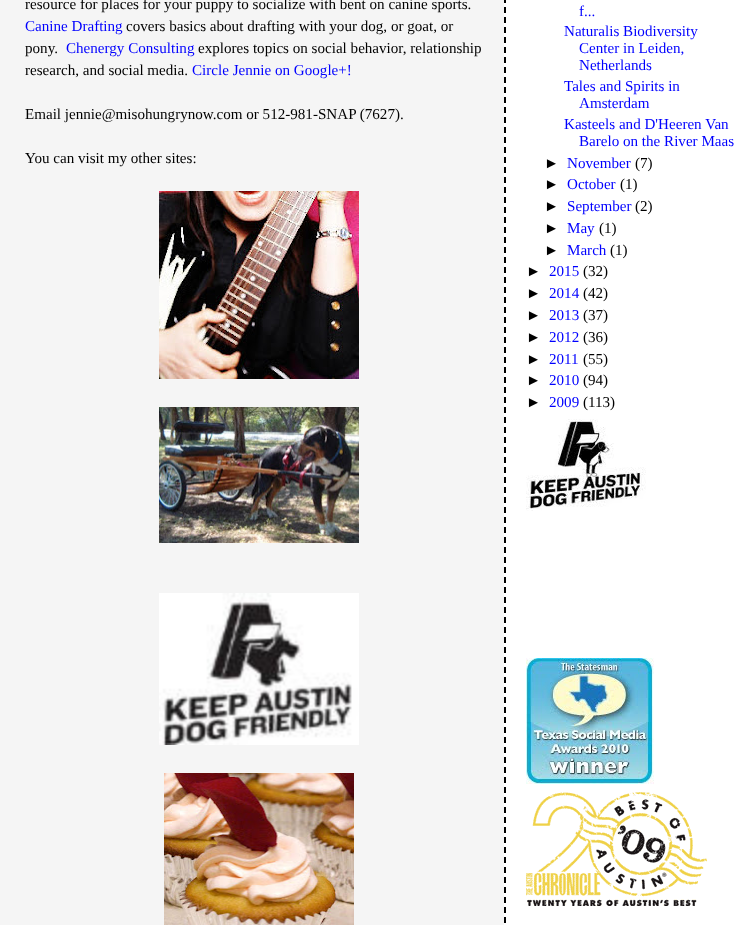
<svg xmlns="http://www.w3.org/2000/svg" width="749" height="925">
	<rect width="100%" height="100%" fill="#F5F5F5" />
	<text x="25" y="9" font-family="Liberation Serif" font-size="15.1" fill="#000000">resource for places for your puppy to socialize with bent on canine sports.</text>
	<text x="25" y="31" font-family="Liberation Serif" font-size="15.1" fill="#0000FF">Canine Drafting</text>
	<g font-family="Liberation Serif" font-size="15.1" fill="#000000">
		<text x="126" y="31">covers basics about drafting with your dog, or goat, or</text>
		<text x="25" y="53">pony.</text>
	</g>
	<text x="66" y="53" font-family="Liberation Serif" font-size="15.1" fill="#0000FF">Chenergy Consulting</text>
	<g font-family="Liberation Serif" font-size="15.1" fill="#000000">
		<text x="198" y="53">explores topics on social behavior, relationship</text>
		<text x="25" y="75">research, and social media.</text>
	</g>
	<text x="192" y="75" font-family="Liberation Serif" font-size="15.1" fill="#0000FF">Circle Jennie on Google+!</text>
	<g font-family="Liberation Serif" font-size="15.1" fill="#000000">
		<text x="25" y="119">Email jennie@misohungrynow.com or 512-981-SNAP (7627).</text>
		<text x="25" y="163">You can visit my other sites:</text>
	</g>
	<image x="159" y="191" width="200" height="188" href="assets/img1.png" />
	<image x="159" y="407" width="200" height="136" href="assets/img2.png" />
	<image x="159" y="593" width="200" height="152" href="assets/img3.png" />
	<image x="164" y="773" width="190" height="152" href="assets/img4.png" />
	<rect x="504" y="0" width="245" height="925" fill="#FFFFFF" />
	<path d="M505-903V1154" fill="none" stroke="#000000" stroke-width="2" stroke-dasharray="6 4" />
	<g font-family="Liberation Serif" font-size="15.1" fill="#0000FF">
		<text x="579" y="16">f...</text>
		<text x="564" y="36">Naturalis Biodiversity</text>
		<text x="579" y="53">Center in Leiden,</text>
		<text x="579" y="70">Netherlands</text>
		<text x="564" y="91">Tales and Spirits in</text>
		<text x="579" y="108">Amsterdam</text>
		<text x="564" y="129">Kasteels and D'Heeren Van</text>
		<text x="579" y="146">Barelo on the River Maas</text>
	</g>
	<text x="544" y="168" font-family="Liberation Sans" font-size="15.1" fill="#000000">►</text>
	<text x="567" y="168" font-family="Liberation Serif" font-size="15.1" fill="#0000FF">November</text>
	<text x="635" y="168" font-family="Liberation Serif" font-size="15.1" fill="#000000">(7)</text>
	<text x="544" y="189" font-family="Liberation Sans" font-size="15.1" fill="#000000">►</text>
	<text x="567" y="189" font-family="Liberation Serif" font-size="15.1" fill="#0000FF">October</text>
	<text x="620" y="189" font-family="Liberation Serif" font-size="15.1" fill="#000000">(1)</text>
	<text x="544" y="211" font-family="Liberation Sans" font-size="15.1" fill="#000000">►</text>
	<text x="567" y="211" font-family="Liberation Serif" font-size="15.1" fill="#0000FF">September</text>
	<text x="635" y="211" font-family="Liberation Serif" font-size="15.1" fill="#000000">(2)</text>
	<text x="544" y="233" font-family="Liberation Sans" font-size="15.1" fill="#000000">►</text>
	<text x="567" y="233" font-family="Liberation Serif" font-size="15.1" fill="#0000FF">May</text>
	<text x="599" y="233" font-family="Liberation Serif" font-size="15.1" fill="#000000">(1)</text>
	<text x="544" y="255" font-family="Liberation Sans" font-size="15.1" fill="#000000">►</text>
	<text x="567" y="255" font-family="Liberation Serif" font-size="15.1" fill="#0000FF">March</text>
	<text x="610" y="255" font-family="Liberation Serif" font-size="15.1" fill="#000000">(1)</text>
	<text x="526" y="276" font-family="Liberation Sans" font-size="15.1" fill="#000000">►</text>
	<text x="549" y="276" font-family="Liberation Serif" font-size="15.1" fill="#0000FF">2015</text>
	<text x="583" y="276" font-family="Liberation Serif" font-size="15.1" fill="#000000">(32)</text>
	<text x="526" y="298" font-family="Liberation Sans" font-size="15.1" fill="#000000">►</text>
	<text x="549" y="298" font-family="Liberation Serif" font-size="15.1" fill="#0000FF">2014</text>
	<text x="583" y="298" font-family="Liberation Serif" font-size="15.1" fill="#000000">(42)</text>
	<text x="526" y="320" font-family="Liberation Sans" font-size="15.1" fill="#000000">►</text>
	<text x="549" y="320" font-family="Liberation Serif" font-size="15.1" fill="#0000FF">2013</text>
	<text x="583" y="320" font-family="Liberation Serif" font-size="15.1" fill="#000000">(37)</text>
	<text x="526" y="342" font-family="Liberation Sans" font-size="15.1" fill="#000000">►</text>
	<text x="549" y="342" font-family="Liberation Serif" font-size="15.1" fill="#0000FF">2012</text>
	<text x="583" y="342" font-family="Liberation Serif" font-size="15.1" fill="#000000">(36)</text>
	<text x="526" y="364" font-family="Liberation Sans" font-size="15.1" fill="#000000">►</text>
	<text x="549" y="364" font-family="Liberation Serif" font-size="15.1" fill="#0000FF">2011</text>
	<text x="583" y="364" font-family="Liberation Serif" font-size="15.1" fill="#000000">(55)</text>
	<text x="526" y="385" font-family="Liberation Sans" font-size="15.1" fill="#000000">►</text>
	<text x="549" y="385" font-family="Liberation Serif" font-size="15.1" fill="#0000FF">2010</text>
	<text x="583" y="385" font-family="Liberation Serif" font-size="15.1" fill="#000000">(94)</text>
	<text x="526" y="407" font-family="Liberation Sans" font-size="15.1" fill="#000000">►</text>
	<text x="549" y="407" font-family="Liberation Serif" font-size="15.1" fill="#0000FF">2009</text>
	<text x="583" y="407" font-family="Liberation Serif" font-size="15.1" fill="#000000">(113)</text>
	<image x="526" y="419" width="120" height="92" href="assets/img5.png" />
	<image x="526" y="658" width="128" height="126" href="assets/img6.png" />
	<image x="526" y="792" width="181" height="114" href="assets/img7.png" />
</svg>
